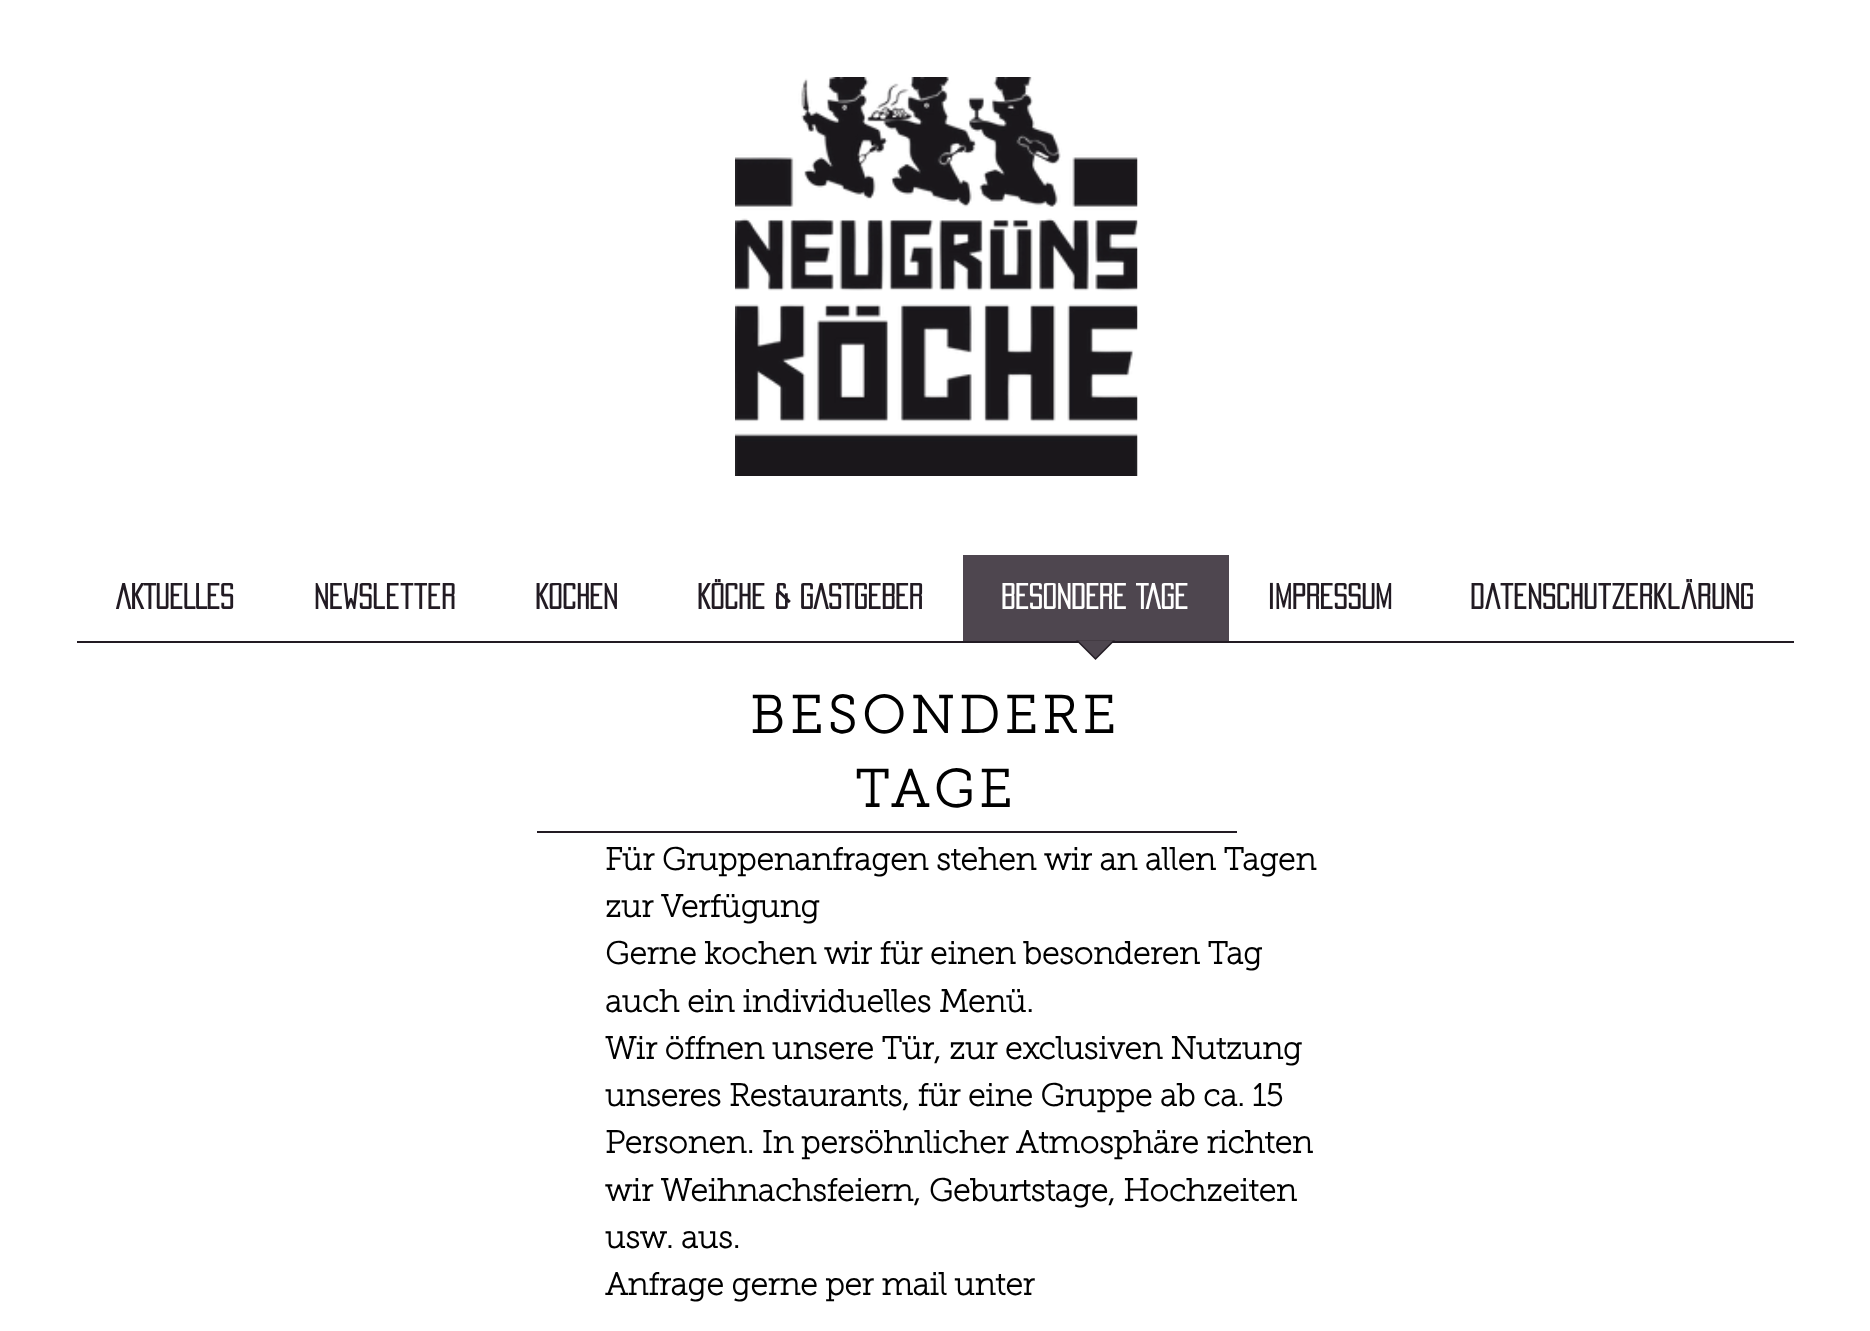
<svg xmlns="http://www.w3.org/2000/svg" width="1870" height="1331">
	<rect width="100%" height="100%" fill="#FFFFFF" />
	<image x="735" y="77" width="403" height="399" href="assets/img1.png" />
	<g font-family="'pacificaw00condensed'" font-size="31.5" font-weight="700" fill="#221B23">
		<text x="116" y="609">AKTUELLES</text>
		<text x="314" y="609">Newsletter</text>
		<text x="535" y="609">KOCHEN</text>
		<text x="697" y="609">KÖCHE &amp; GASTGEBER</text>
	</g>
	<rect x="963" y="555" width="266" height="86" fill="#4E464F" />
	<text x="1001" y="609" font-family="'pacificaw00condensed'" font-size="31.5" font-weight="700" fill="#FFFFFF">BESONDERE TAGE</text>
	<rect x="77" y="641" width="1717" height="2" fill="#221B23" />
	<path d="M1076 640.5H1115L1095.5 660Z" fill="#221B23" />
	<path d="M1078 640.5H1113L1095.5 658Z" fill="#4E464F" />
	<g font-family="'pacificaw00condensed'" font-size="31.5" font-weight="700" fill="#221B23">
		<text x="1267" y="609">IMPRESSUM</text>
		<text x="1470" y="609">Datenschutzerklärung</text>
	</g>
	<g font-family="'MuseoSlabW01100'" font-size="52.5" font-weight="700" letter-spacing="5.25" fill="#000000">
		<text x="750" y="733">BESONDERE</text>
		<text x="855" y="807">TAGE</text>
	</g>
	<rect x="537" y="831" width="700" height="2" fill="#221B23" />
	<g font-family="'MuseoSlabW01100'" font-size="31.5" font-weight="700" fill="#000000">
		<text x="605" y="870">Für Gruppenanfragen stehen wir an allen Tagen</text>
		<text x="605" y="917">zur Verfügung</text>
		<text x="605" y="964">Gerne kochen wir für einen besonderen Tag</text>
		<text x="605" y="1012">auch ein individuelles Menü.</text>
		<text x="605" y="1059">Wir öffnen unsere Tür, zur exclusiven Nutzung</text>
		<text x="605" y="1106">unseres Restaurants, für eine Gruppe ab ca. 15</text>
		<text x="605" y="1153">Personen. In persöhnlicher Atmosphäre richten</text>
		<text x="605" y="1201">wir Weihnachsfeiern, Geburtstage, Hochzeiten</text>
		<text x="605" y="1248">usw. aus.</text>
		<text x="605" y="1295">Anfrage gerne per mail unter</text>
	</g>
</svg>
